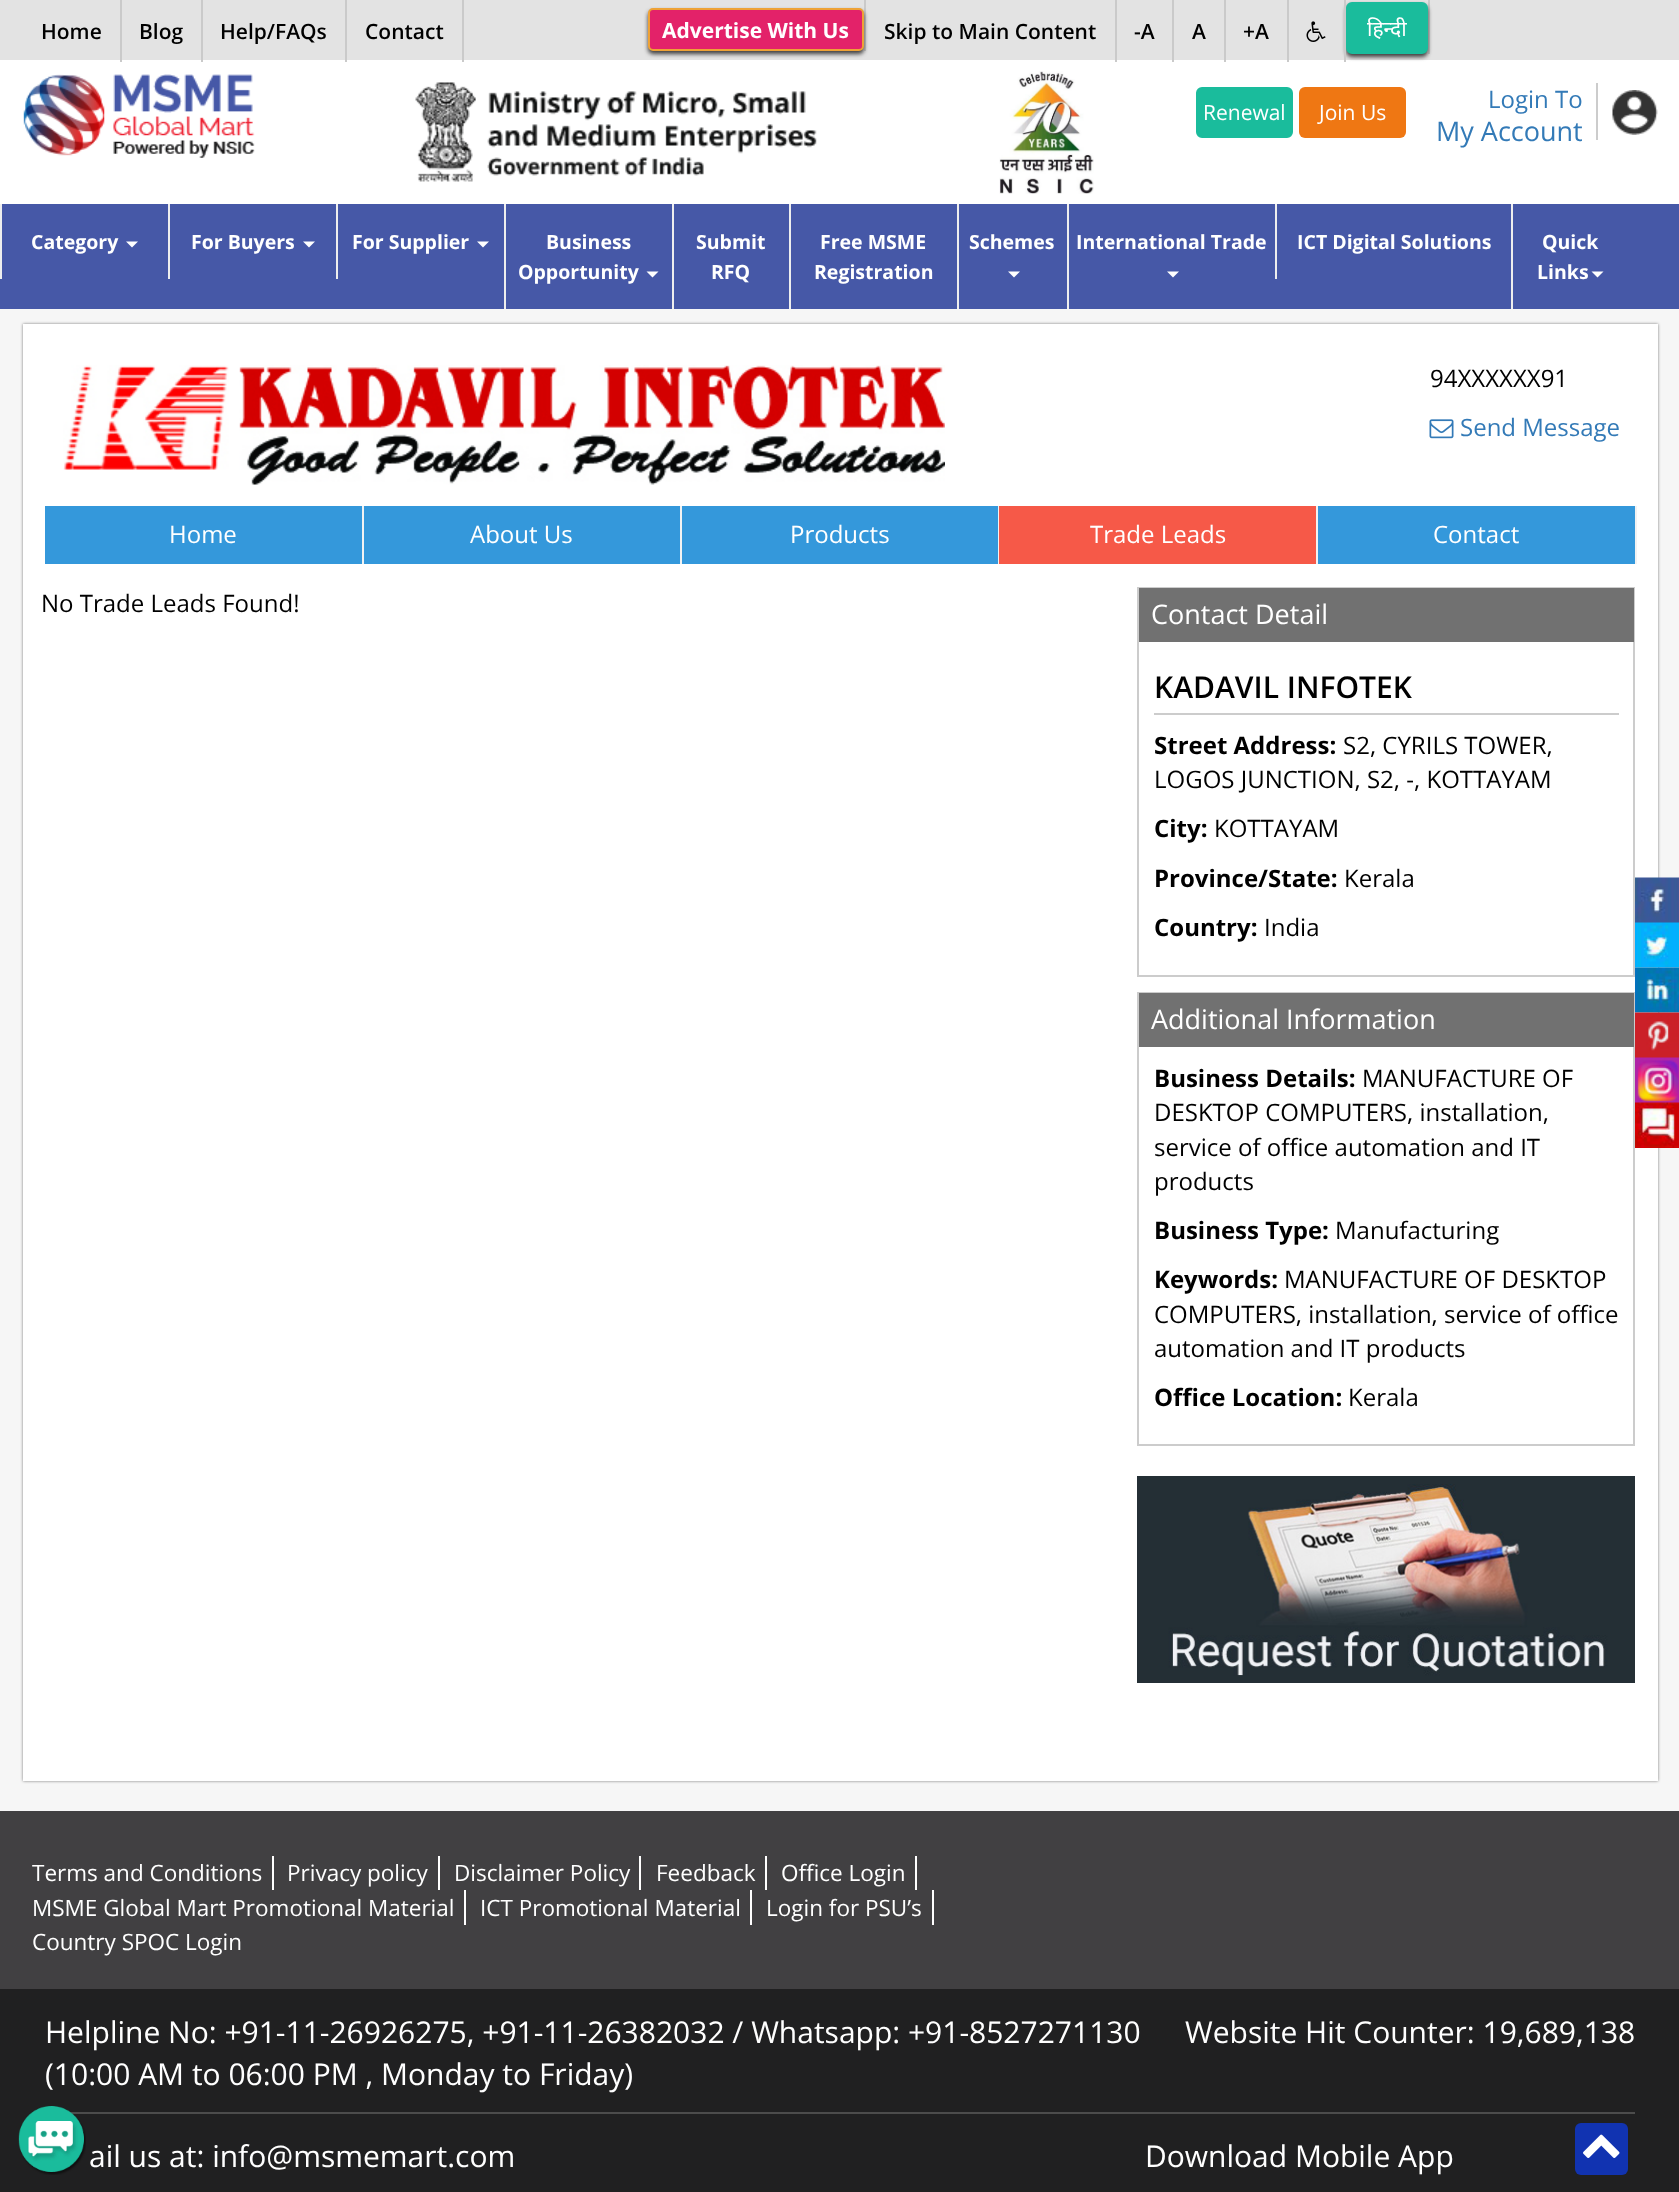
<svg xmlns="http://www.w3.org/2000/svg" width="1679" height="2192">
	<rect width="100%" height="100%" fill="#F6F6F6" />
	<rect x="0" y="0" width="1679" height="60" fill="#E3E3E3" />
	<rect x="0" y="60" width="1679" height="144" fill="#FFFFFF" />
	<rect x="120" y="0" width="2" height="62" fill="#CACACA" />
	<text x="41" y="39" font-family="Open Sans" font-size="21" font-weight="600" fill="#000000">Home</text>
	<rect x="201" y="0" width="2" height="62" fill="#CACACA" />
	<text x="139" y="39" font-family="Open Sans" font-size="21" font-weight="600" fill="#000000">Blog</text>
	<rect x="345" y="0" width="2" height="62" fill="#CACACA" />
	<text x="220" y="39" font-family="Open Sans" font-size="21" font-weight="600" fill="#000000">Help/FAQs</text>
	<rect x="462" y="0" width="2" height="62" fill="#CACACA" />
	<text x="365" y="39" font-family="Open Sans" font-size="21" font-weight="600" fill="#000000">Contact</text>
	<rect x="864" y="0" width="2" height="51" fill="#CACACA" />
	<rect x="648" y="11" width="216" height="43" rx="5" fill="#3E3D3D" filter="blur(2px)" />
	<rect x="649" y="9" width="214" height="41" rx="4" fill="#E32269" stroke="#EEA236" stroke-width="2" />
	<text x="662" y="38" font-family="Open Sans" font-size="21" font-weight="700" fill="#FFFFFF">Advertise With Us</text>
	<rect x="1115" y="0" width="2" height="62" fill="#CACACA" />
	<text x="884" y="39" font-family="Open Sans" font-size="21" font-weight="600" fill="#000000">Skip to Main Content</text>
	<rect x="1172" y="0" width="2" height="62" fill="#CACACA" />
	<text x="1134" y="39" font-family="Open Sans" font-size="21" font-weight="600" fill="#000000">-A</text>
	<rect x="1224" y="0" width="2" height="62" fill="#CACACA" />
	<text x="1192" y="39" font-family="Open Sans" font-size="21" font-weight="600" fill="#000000">A</text>
	<rect x="1287" y="0" width="2" height="62" fill="#CACACA" />
	<text x="1243" y="39" font-family="Open Sans" font-size="21" font-weight="600" fill="#000000">+A</text>
	<rect x="1428" y="0" width="2" height="54" fill="#CACACA" />
	<rect x="1346" y="5" width="82" height="52" rx="6" fill="#3E3D3D" filter="blur(2px)" />
	<rect x="1344" y="0" width="2" height="62" fill="#CACACA" />
	<image x="1306" y="21" width="20" height="21" href="assets/img1.png" />
	<rect x="1347" y="3" width="80" height="50" rx="5" fill="#1ABC9C" stroke="#1ABC9C" stroke-width="2" />
	<text x="1367" y="36" font-family="Noto Sans" font-size="21" fill="#FFFFFF">हिन्दी</text>
	<image x="23" y="74" width="232" height="84" href="assets/img2.png" />
	<image x="415" y="82" width="402" height="100" href="assets/img3.png" />
	<image x="999" y="71" width="95" height="123" href="assets/img4.png" />
	<rect x="1197" y="88" width="95" height="49" rx="5" fill="#1ABC9C" stroke="#1ABC9C" stroke-width="2" />
	<text x="1203" y="120" font-family="Open Sans" font-size="21" fill="#FFFFFF">Renewal</text>
	<rect x="1299" y="87" width="107" height="51" rx="6" fill="#EF7713" />
	<text x="1319" y="120" font-family="Open Sans" font-size="21" fill="#FFFFFF">Join Us</text>
	<text x="1488" y="108" font-family="Open Sans" font-size="24" fill="#337AB7">Login To</text>
	<text x="1436" y="141" font-family="Open Sans" font-size="27" fill="#337AB7">My Account</text>
	<rect x="1596" y="83" width="2" height="57" fill="#CCCCCC" />
	<image x="1612" y="90" width="46" height="45" href="assets/img5.png" />
	<rect x="0" y="204" width="1679" height="105" fill="#4658A7" />
	<rect x="0" y="204" width="2" height="75" fill="#EEEEEE" />
	<text x="31" y="249" font-family="Open Sans" font-size="19.5" font-weight="700" fill="#FFFFFF">Category</text>
	<path d="M126 241.5H138L132 247.5Z" fill="#FFFFFF" />
	<rect x="168" y="204" width="2" height="75" fill="#EEEEEE" />
	<text x="191" y="249" font-family="Open Sans" font-size="19.5" font-weight="700" fill="#FFFFFF">For Buyers</text>
	<path d="M303 241.5H315L309 247.5Z" fill="#FFFFFF" />
	<rect x="336" y="204" width="2" height="75" fill="#EEEEEE" />
	<text x="352" y="249" font-family="Open Sans" font-size="19.5" font-weight="700" fill="#FFFFFF">For Supplier</text>
	<path d="M477 241.5H489L483 247.5Z" fill="#FFFFFF" />
	<rect x="504" y="204" width="2" height="105" fill="#EEEEEE" />
	<g font-family="Open Sans" font-size="19.5" font-weight="700" fill="#FFFFFF">
		<text x="546" y="249">Business</text>
		<text x="518" y="279">Opportunity</text>
	</g>
	<path d="M646.5 271.5H658.5L652.5 277.5Z" fill="#FFFFFF" />
	<rect x="672" y="204" width="2" height="105" fill="#EEEEEE" />
	<g font-family="Open Sans" font-size="19.5" font-weight="700" fill="#FFFFFF">
		<text x="696" y="249">Submit</text>
		<text x="711" y="279">RFQ</text>
	</g>
	<rect x="789" y="204" width="2" height="105" fill="#EEEEEE" />
	<g font-family="Open Sans" font-size="19.5" font-weight="700" fill="#FFFFFF">
		<text x="820" y="249">Free MSME</text>
		<text x="814" y="279">Registration</text>
	</g>
	<rect x="957" y="204" width="2" height="105" fill="#EEEEEE" />
	<text x="969" y="249" font-family="Open Sans" font-size="19.5" font-weight="700" fill="#FFFFFF">Schemes</text>
	<path d="M1008 271.5H1020L1014 277.5Z" fill="#FFFFFF" />
	<rect x="1067" y="204" width="2" height="105" fill="#EEEEEE" />
	<text x="1076" y="249" font-family="Open Sans" font-size="19.5" font-weight="700" fill="#FFFFFF">International Trade</text>
	<path d="M1167 271.5H1179L1173 277.5Z" fill="#FFFFFF" />
	<rect x="1275" y="204" width="2" height="75" fill="#EEEEEE" />
	<text x="1297" y="249" font-family="Open Sans" font-size="19.5" font-weight="700" fill="#FFFFFF">ICT Digital Solutions</text>
	<rect x="1511" y="204" width="2" height="105" fill="#EEEEEE" />
	<g font-family="Open Sans" font-size="19.5" font-weight="700" fill="#FFFFFF">
		<text x="1542" y="249">Quick</text>
		<text x="1537" y="279">Links</text>
	</g>
	<path d="M1591.5 271.5H1603.5L1597.5 277.5Z" fill="#FFFFFF" />
	<rect x="23" y="324" width="1635" height="1457" fill="#000000" fill-opacity="0.5" filter="blur(1.5px)" />
	<rect x="23" y="324" width="1635" height="1457" fill="#FFFFFF" />
	<image x="63" y="365" width="882" height="120" href="assets/img6.png" />
	<text x="1430" y="387" font-family="Open Sans" font-size="24" fill="#000000">94XXXXXX91</text>
	<image x="1429" y="419" width="25" height="20" href="assets/img7.png" />
	<text x="1460" y="436" font-family="Open Sans" font-size="24" fill="#337AB7">Send Message</text>
	<rect x="45" y="506" width="1590" height="58" fill="#3498DB" />
	<rect x="362" y="506" width="2" height="58" fill="#F2F2F2" />
	<text x="169" y="543" font-family="Open Sans" font-size="24" fill="#FFFFFF">Home</text>
	<rect x="680" y="506" width="2" height="58" fill="#F2F2F2" />
	<text x="470" y="543" font-family="Open Sans" font-size="24" fill="#FFFFFF">About Us</text>
	<rect x="998" y="506" width="1" height="58" fill="#F2F2F2" />
	<text x="790" y="543" font-family="Open Sans" font-size="24" fill="#FFFFFF">Products</text>
	<rect x="999" y="506" width="317" height="58" fill="#F65948" />
	<rect x="1316" y="506" width="2" height="58" fill="#F2F2F2" />
	<text x="1090" y="543" font-family="Open Sans" font-size="24" fill="#FFFFFF">Trade Leads</text>
	<rect x="1635" y="506" width="2" height="58" fill="#F2F2F2" />
	<text x="1433" y="543" font-family="Open Sans" font-size="24" fill="#FFFFFF">Contact</text>
	<text x="41" y="612" font-family="Open Sans" font-size="24" fill="#000000">No Trade Leads Found!</text>
	<rect x="1138" y="588" width="496" height="388" fill="none" stroke="#CCCCCC" stroke-width="2" />
	<rect x="1139" y="588" width="495" height="54" fill="#717171" />
	<text x="1151" y="624" font-family="Open Sans" font-size="27" fill="#FFFFFF">Contact Detail</text>
	<rect x="1154" y="713" width="465" height="2" fill="#CCCCCC" />
	<text x="1154" y="698" font-family="Open Sans" font-size="30" font-weight="600" fill="#000000">KADAVIL INFOTEK</text>
	<text x="1154" y="754" font-family="Open Sans" font-size="24" font-weight="700" fill="#000000">Street Address:</text>
	<g font-family="Open Sans" font-size="24" fill="#000000">
		<text x="1343" y="754">S2, CYRILS TOWER,</text>
		<text x="1154" y="788">LOGOS JUNCTION, S2, -, KOTTAYAM</text>
	</g>
	<text x="1154" y="837" font-family="Open Sans" font-size="24" font-weight="700" fill="#000000">City:</text>
	<text x="1214" y="837" font-family="Open Sans" font-size="24" fill="#000000">KOTTAYAM</text>
	<text x="1154" y="887" font-family="Open Sans" font-size="24" font-weight="700" fill="#000000">Province/State:</text>
	<text x="1344" y="887" font-family="Open Sans" font-size="24" fill="#000000">Kerala</text>
	<text x="1154" y="936" font-family="Open Sans" font-size="24" font-weight="700" fill="#000000">Country:</text>
	<text x="1264" y="936" font-family="Open Sans" font-size="24" fill="#000000">India</text>
	<rect x="1138" y="993" width="496" height="452" fill="none" stroke="#CCCCCC" stroke-width="2" />
	<rect x="1139" y="993" width="495" height="54" fill="#717171" />
	<text x="1151" y="1029" font-family="Open Sans" font-size="27" fill="#FFFFFF">Additional Information</text>
	<text x="1154" y="1087" font-family="Open Sans" font-size="24" font-weight="700" fill="#000000">Business Details:</text>
	<g font-family="Open Sans" font-size="24" fill="#000000">
		<text x="1362" y="1087">MANUFACTURE OF</text>
		<text x="1154" y="1121">DESKTOP COMPUTERS, installation,</text>
		<text x="1154" y="1156">service of office automation and IT</text>
		<text x="1154" y="1190">products</text>
	</g>
	<text x="1154" y="1239" font-family="Open Sans" font-size="24" font-weight="700" fill="#000000">Business Type:</text>
	<text x="1335" y="1239" font-family="Open Sans" font-size="24" fill="#000000">Manufacturing</text>
	<text x="1154" y="1288" font-family="Open Sans" font-size="24" font-weight="700" fill="#000000">Keywords:</text>
	<g font-family="Open Sans" font-size="24" fill="#000000">
		<text x="1284" y="1288">MANUFACTURE OF DESKTOP</text>
		<text x="1154" y="1323">COMPUTERS, installation, service of office</text>
		<text x="1154" y="1357">automation and IT products</text>
	</g>
	<text x="1154" y="1406" font-family="Open Sans" font-size="24" font-weight="700" fill="#000000">Office Location:</text>
	<text x="1348" y="1406" font-family="Open Sans" font-size="24" fill="#000000">Kerala</text>
	<image x="1137" y="1476" width="498" height="207" href="assets/img8.png" />
	<rect x="1635" y="922" width="44" height="1" fill="#3B5997" />
	<image x="1635" y="877" width="44" height="45" href="assets/img9.png" />
	<image x="1635" y="922" width="44" height="46" href="assets/img10.png" />
	<image x="1635" y="967" width="44" height="46" href="assets/img11.png" />
	<rect x="1635" y="1051" width="44" height="7" fill="#CB2027" />
	<image x="1635" y="1012" width="44" height="39" href="assets/img12.png" />
	<rect x="1635" y="1102" width="44" height="1" fill="#B023A7" />
	<image x="1635" y="1057" width="44" height="45" href="assets/img13.png" />
	<rect x="1635" y="1147" width="44" height="1" fill="#CD0102" />
	<image x="1635" y="1102" width="44" height="46" href="assets/img14.png" />
	<rect x="0" y="1811" width="1679" height="178" fill="#414042" />
	<rect x="272" y="1856" width="2" height="34" fill="#FFFFFF" />
	<text x="32" y="1881" font-family="Open Sans" font-size="22.5" fill="#FFFFFF">Terms and Conditions</text>
	<rect x="438" y="1856" width="2" height="34" fill="#FFFFFF" />
	<text x="287" y="1881" font-family="Open Sans" font-size="22.5" fill="#FFFFFF">Privacy policy</text>
	<rect x="639" y="1856" width="2" height="34" fill="#FFFFFF" />
	<text x="454" y="1881" font-family="Open Sans" font-size="22.5" fill="#FFFFFF">Disclaimer Policy</text>
	<rect x="765" y="1856" width="2" height="34" fill="#FFFFFF" />
	<text x="656" y="1881" font-family="Open Sans" font-size="22.5" fill="#FFFFFF">Feedback</text>
	<rect x="915" y="1856" width="2" height="34" fill="#FFFFFF" />
	<text x="781" y="1881" font-family="Open Sans" font-size="22.5" fill="#FFFFFF">Office Login</text>
	<rect x="464" y="1890" width="2" height="35" fill="#FFFFFF" />
	<text x="32" y="1916" font-family="Open Sans" font-size="22.5" fill="#FFFFFF">MSME Global Mart Promotional Material</text>
	<rect x="750" y="1890" width="2" height="35" fill="#FFFFFF" />
	<text x="480" y="1916" font-family="Open Sans" font-size="22.5" fill="#FFFFFF">ICT Promotional Material</text>
	<rect x="932" y="1890" width="2" height="35" fill="#FFFFFF" />
	<g font-family="Open Sans" font-size="22.5" fill="#FFFFFF">
		<text x="766" y="1916">Login for PSU’s</text>
		<text x="32" y="1950">Country SPOC Login</text>
	</g>
	<rect x="0" y="1989" width="1679" height="203" fill="#202021" />
	<rect x="69" y="2112" width="1566" height="2" fill="#4C4C4C" />
	<g font-family="Open Sans" font-size="30" fill="#FFFFFF">
		<text x="45" y="2043">Helpline No: +91-11-26926275, +91-11-26382032 / Whatsapp: +91-8527271130</text>
		<text x="1185" y="2043">Website Hit Counter: 19,689,138</text>
		<text x="45" y="2085">(10:00 AM to 06:00 PM , Monday to Friday)</text>
		<text x="89" y="2167">ail us at: info@msmemart.com</text>
		<text x="1145" y="2167">Download Mobile App</text>
	</g>
	<image x="18" y="2106" width="68" height="69" href="assets/img15.png" />
	<rect x="1575" y="2123" width="53" height="52" rx="6" fill="#1133B1" />
	<image x="1583" y="2134" width="37" height="24" href="assets/img16.png" />
</svg>
